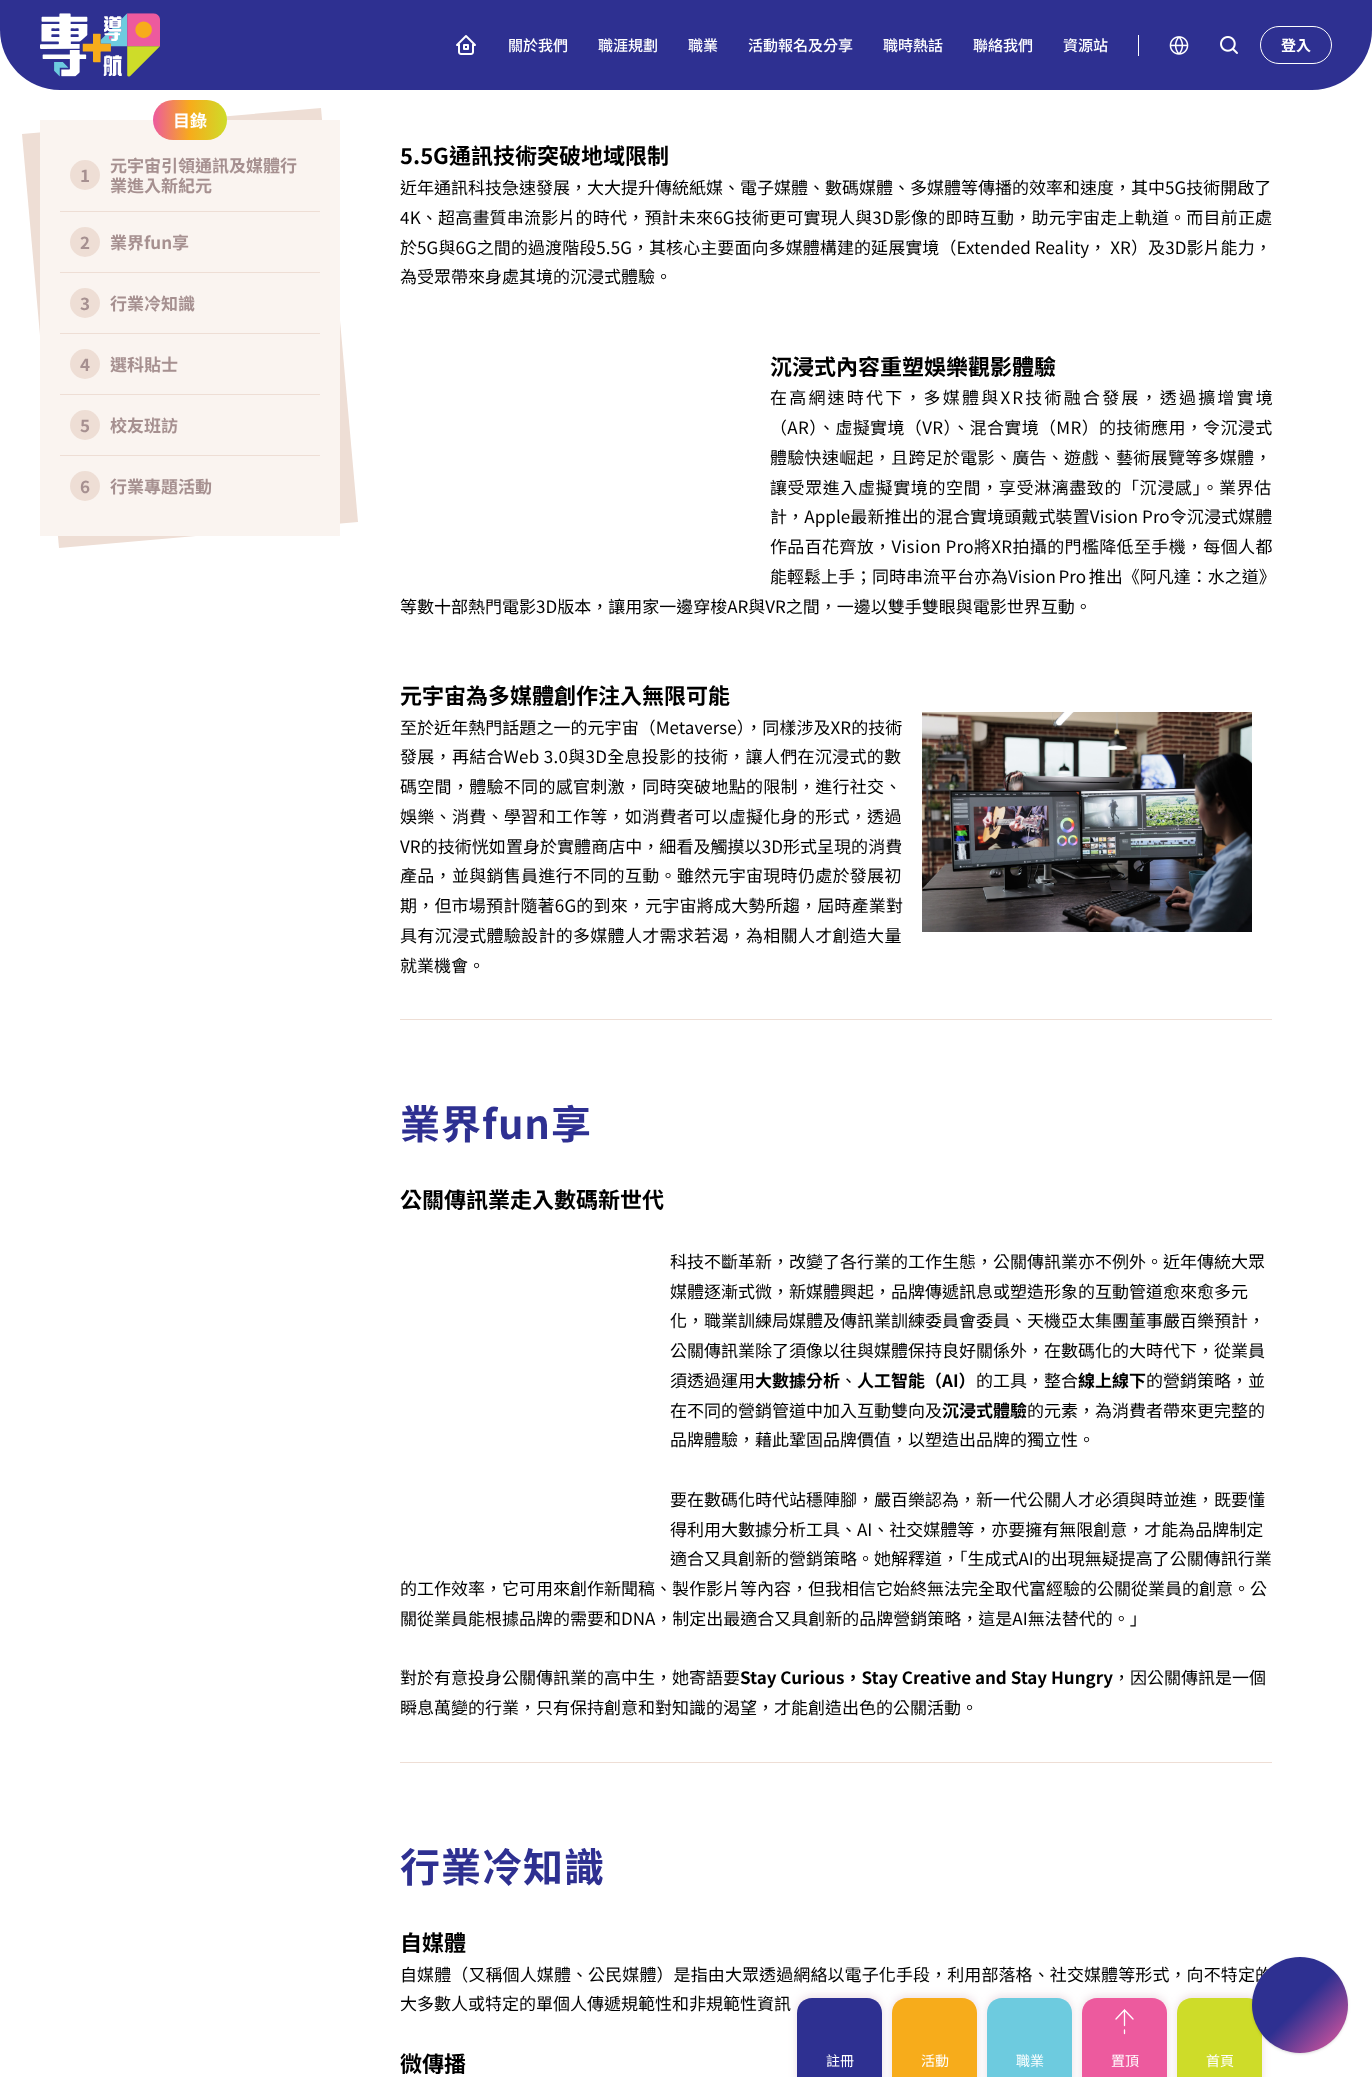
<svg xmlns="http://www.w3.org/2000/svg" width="1372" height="2077">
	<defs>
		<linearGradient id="g1" gradientUnits="userSpaceOnUse" x1="153" y1="120" x2="227" y2="120"><stop offset="0" stop-color="#ED5A9E" /><stop offset="0.5" stop-color="#F7AC1B" /><stop offset="1" stop-color="#CEDC29" /></linearGradient>
		<linearGradient id="g2" gradientUnits="userSpaceOnUse" x1="1252" y1="1957" x2="1348" y2="2053"><stop offset="0.5" stop-color="#2E3091" /><stop offset="1" stop-color="#ED5A9F" /></linearGradient>
	</defs>
	<rect width="100%" height="100%" fill="#FFFFFF" />
	<path d="M0 0H1372V30C1372 63 1345 90 1312 90H60C27 90 0 63 0 30Z" fill="#2E3091" />
	<image x="40" y="13" width="120" height="64" href="assets/img1.png" />
	<image x="456" y="35" width="20" height="20" href="assets/img2.png" />
	<g font-family="Noto Sans TC" font-size="15" font-weight="500" fill="#FFFFFF">
		<text x="508" y="51">關於我們</text>
		<text x="598" y="51">職涯規劃</text>
		<text x="688" y="51">職業</text>
		<text x="748" y="51">活動報名及分享</text>
		<text x="883" y="51">職時熱話</text>
		<text x="973" y="51">聯絡我們</text>
		<text x="1063" y="51">資源站</text>
	</g>
	<rect x="1138" y="35" width="1" height="21" fill="#FFFFFF" />
	<image x="1169" y="36" width="20" height="19" href="assets/img3.png" />
	<image x="1220" y="36" width="18" height="18" href="assets/img4.png" />
	<rect x="1260.5" y="26.5" width="71" height="37" rx="18.5" fill="none" stroke="#FFFFFF" />
	<text x="1281" y="51" font-family="Noto Sans TC" font-size="15" font-weight="700" fill="#FFFFFF">登入</text>
	<path d="M22 134L321 108L358 522L59 548Z" fill="#EEDED5" />
	<rect x="40" y="120" width="300" height="416" fill="#FAF4F0" />
	<rect x="153" y="100" width="74" height="40" rx="20" fill="url(#g1)" />
	<text x="173" y="127" font-family="Noto Sans TC" font-size="17" font-weight="700" fill="#FFFFFF">目錄</text>
	<rect x="60" y="211" width="260" height="1" fill="#EEDED5" />
	<circle cx="85" cy="175" r="15" fill="#EEDED5" />
	<g font-family="Noto Sans TC" font-size="17" font-weight="700" fill="#A69090">
		<text x="80" y="182">1</text>
		<text x="110" y="172">元宇宙引領通訊及媒體行</text>
		<text x="110" y="192">業進入新紀元</text>
	</g>
	<rect x="60" y="272" width="260" height="1" fill="#EEDED5" />
	<circle cx="85" cy="242" r="15" fill="#EEDED5" />
	<g font-family="Noto Sans TC" font-size="17" font-weight="700" fill="#A69090">
		<text x="80" y="249">2</text>
		<text x="110" y="249">業界fun享</text>
	</g>
	<rect x="60" y="333" width="260" height="1" fill="#EEDED5" />
	<circle cx="85" cy="303" r="15" fill="#EEDED5" />
	<g font-family="Noto Sans TC" font-size="17" font-weight="700" fill="#A69090">
		<text x="80" y="310">3</text>
		<text x="110" y="310">行業冷知識</text>
	</g>
	<rect x="60" y="394" width="260" height="1" fill="#EEDED5" />
	<circle cx="85" cy="364" r="15" fill="#EEDED5" />
	<g font-family="Noto Sans TC" font-size="17" font-weight="700" fill="#A69090">
		<text x="80" y="371">4</text>
		<text x="110" y="371">選科貼士</text>
	</g>
	<rect x="60" y="455" width="260" height="1" fill="#EEDED5" />
	<circle cx="85" cy="425" r="15" fill="#EEDED5" />
	<g font-family="Noto Sans TC" font-size="17" font-weight="700" fill="#A69090">
		<text x="80" y="432">5</text>
		<text x="110" y="432">校友班訪</text>
	</g>
	<circle cx="85" cy="486" r="15" fill="#EEDED5" />
	<g font-family="Noto Sans TC" font-size="17" font-weight="700" fill="#A69090">
		<text x="80" y="493">6</text>
		<text x="110" y="493">行業專題活動</text>
	</g>
	<rect x="400" y="1019" width="872" height="1" fill="#EEDED5" />
	<text x="400" y="164" font-family="Noto Sans TC" font-size="22" font-weight="700" fill="#000000">5.5G通訊技術突破地域限制</text>
	<text x="400" y="194" font-family="Noto Sans TC" font-size="17" fill="#000000">近年通訊科技急速發展，大大提升傳統紙媒、電子媒體、數碼媒體、多媒體等傳播的效率和速度，其中5G技術開啟了</text>
	<text x="400" y="224" font-family="Noto Sans TC" font-size="17" letter-spacing="0.2" fill="#000000">4K、超高畫質串流影片的時代，預計未來6G技術更可實現人與3D影像的即時互動，助元宇宙走上軌道。而目前正處</text>
	<text x="400" y="254" font-family="Noto Sans TC" font-size="17" letter-spacing="0.08" fill="#000000">於5G與6G之間的過渡階段5.5G，其核心主要面向多媒體構建的延展實境（Extended Reality， XR）及3D影片能力，</text>
	<text x="400" y="283" font-family="Noto Sans TC" font-size="17" fill="#000000">為受眾帶來身處其境的沉浸式體驗。</text>
	<text x="770" y="375" font-family="Noto Sans TC" font-size="22" font-weight="700" fill="#000000">沉浸式內容重塑娛樂觀影體驗</text>
	<text x="770" y="404" font-family="Noto Sans TC" font-size="17" letter-spacing="2.2" fill="#000000">在高網速時代下，多媒體與XR技術融合發展，透過擴增實境</text>
	<text x="770" y="434" font-family="Noto Sans TC" font-size="17" letter-spacing="0.35" fill="#000000">（AR）、虛擬實境（VR）、混合實境（MR）的技術應用，令沉浸式</text>
	<text x="770" y="464" font-family="Noto Sans TC" font-size="17" letter-spacing="0.3" fill="#000000">體驗快速崛起，且跨足於電影、廣告、遊戲、藝術展覽等多媒體，</text>
	<text x="770" y="494" font-family="Noto Sans TC" font-size="17" letter-spacing="0.6" fill="#000000">讓受眾進入虛擬實境的空間，享受淋漓盡致的「沉浸感」。業界估</text>
	<text x="770" y="523" font-family="Noto Sans TC" font-size="17" letter-spacing="0.1" fill="#000000">計，Apple最新推出的混合實境頭戴式裝置Vision Pro令沉浸式媒體</text>
	<text x="770" y="553" font-family="Noto Sans TC" font-size="17" letter-spacing="0.35" fill="#000000">作品百花齊放，Vision Pro將XR拍攝的門檻降低至手機，每個人都</text>
	<g font-family="Noto Sans TC" font-size="17" fill="#000000">
		<text x="770" y="583" word-spacing="-1">能輕鬆上手；同時串流平台亦為Vision Pro 推出《阿凡達：水之道》</text>
		<text x="400" y="613">等數十部熱門電影3D版本，讓用家一邊穿梭AR與VR之間，一邊以雙手雙眼與電影世界互動。</text>
	</g>
	<text x="400" y="704" font-family="Noto Sans TC" font-size="22" font-weight="700" fill="#000000">元宇宙為多媒體創作注入無限可能</text>
	<text x="400" y="734" font-family="Noto Sans TC" font-size="17" letter-spacing="0.05" fill="#000000">至於近年熱門話題之一的元宇宙（Metaverse），同樣涉及XR的技術</text>
	<g font-family="Noto Sans TC" font-size="17" letter-spacing="0.3" fill="#000000">
		<text x="400" y="763">發展，再結合Web 3.0與3D全息投影的技術，讓人們在沉浸式的數</text>
		<text x="400" y="793">碼空間，體驗不同的感官刺激，同時突破地點的限制，進行社交、</text>
		<text x="400" y="823">娛樂、消費、學習和工作等，如消費者可以虛擬化身的形式，透過</text>
	</g>
	<text x="400" y="853" font-family="Noto Sans TC" font-size="17" letter-spacing="0.05" fill="#000000">VR的技術恍如置身於實體商店中，細看及觸摸以3D形式呈現的消費</text>
	<text x="400" y="882" font-family="Noto Sans TC" font-size="17" letter-spacing="0.3" fill="#000000">產品，並與銷售員進行不同的互動。雖然元宇宙現時仍處於發展初</text>
	<text x="400" y="912" font-family="Noto Sans TC" font-size="17" letter-spacing="0.2" fill="#000000">期，但市場預計隨著6G的到來，元宇宙將成大勢所趨，屆時產業對</text>
	<text x="400" y="942" font-family="Noto Sans TC" font-size="17" letter-spacing="0.3" fill="#000000">具有沉浸式體驗設計的多媒體人才需求若渴，為相關人才創造大量</text>
	<text x="400" y="972" font-family="Noto Sans TC" font-size="17" fill="#000000">就業機會。</text>
	<image x="922" y="712" width="330" height="220" href="assets/img5.png" />
	<rect x="400" y="1762" width="872" height="1" fill="#EEDED5" />
	<text x="400" y="1139" font-family="Noto Sans TC" font-size="40" font-weight="700" letter-spacing="1" fill="#2E3091">業界fun享</text>
	<text x="400" y="1208" font-family="Noto Sans TC" font-size="22" font-weight="700" fill="#000000">公關傳訊業走入數碼新世代</text>
	<g font-family="Noto Sans TC" font-size="17" fill="#000000">
		<text x="670" y="1268">科技不斷革新，改變了各行業的工作生態，公關傳訊業亦不例外。近年傳統大眾</text>
		<text x="670" y="1298">媒體逐漸式微，新媒體興起，品牌傳遞訊息或塑造形象的互動管道愈來愈多元</text>
		<text x="670" y="1327">化，職業訓練局媒體及傳訊業訓練委員會委員、天機亞太集團董事嚴百樂預計，</text>
		<text x="670" y="1357">公關傳訊業除了須像以往與媒體保持良好關係外，在數碼化的大時代下，從業員</text>
		<text x="670" y="1387">須透過運用</text>
	</g>
	<text x="755" y="1387" font-family="Noto Sans TC" font-size="17" font-weight="700" fill="#000000">大數據分析</text>
	<text x="840" y="1387" font-family="Noto Sans TC" font-size="17" fill="#000000">、</text>
	<text x="857" y="1387" font-family="Noto Sans TC" font-size="17" font-weight="700" fill="#000000">人工智能（AI）</text>
	<text x="976" y="1387" font-family="Noto Sans TC" font-size="17" fill="#000000">的工具，整合</text>
	<text x="1078" y="1387" font-family="Noto Sans TC" font-size="17" font-weight="700" fill="#000000">線上線下</text>
	<g font-family="Noto Sans TC" font-size="17" fill="#000000">
		<text x="1146" y="1387">的營銷策略，並</text>
		<text x="670" y="1417">在不同的營銷管道中加入互動雙向及</text>
	</g>
	<text x="942" y="1417" font-family="Noto Sans TC" font-size="17" font-weight="700" fill="#000000">沉浸式體驗</text>
	<g font-family="Noto Sans TC" font-size="17" fill="#000000">
		<text x="1027" y="1417">的元素，為消費者帶來更完整的</text>
		<text x="670" y="1446">品牌體驗，藉此鞏固品牌價值，以塑造出品牌的獨立性。</text>
		<text x="670" y="1506">要在數碼化時代站穩陣腳，嚴百樂認為，新一代公關人才必須與時並進，既要懂</text>
		<text x="670" y="1536">得利用大數據分析工具、AI、社交媒體等，亦要擁有無限創意，才能為品牌制定</text>
		<text x="670" y="1565">適合又具創新的營銷策略。她解釋道，「生成式AI的出現無疑提高了公關傳訊行業</text>
		<text x="400" y="1595">的工作效率，它可用來創作新聞稿、製作影片等內容，但我相信它始終無法完全取代富經驗的公關從業員的創意。公</text>
		<text x="400" y="1625">關從業員能根據品牌的需要和DNA，制定出最適合又具創新的品牌營銷策略，這是AI無法替代的。」</text>
		<text x="400" y="1684">對於有意投身公關傳訊業的高中生，她寄語要</text>
	</g>
	<text x="740" y="1684" font-family="Noto Sans TC" font-size="17" font-weight="700" fill="#000000">Stay Curious，Stay Creative and Stay Hungry</text>
	<g font-family="Noto Sans TC" font-size="17" fill="#000000">
		<text x="1113" y="1684">，因公關傳訊是一個</text>
		<text x="400" y="1714">瞬息萬變的行業，只有保持創意和對知識的渴望，才能創造出色的公關活動。</text>
	</g>
	<text x="400" y="1882" font-family="Noto Sans TC" font-size="40" font-weight="700" letter-spacing="1" fill="#2E3091">行業冷知識</text>
	<text x="400" y="1951" font-family="Noto Sans TC" font-size="22" font-weight="700" fill="#000000">自媒體</text>
	<text x="400" y="1981" font-family="Noto Sans TC" font-size="17" letter-spacing="0.1" fill="#000000">自媒體（又稱個人媒體、公民媒體）是指由大眾透過網絡以電子化手段，利用部落格、社交媒體等形式，向不特定的</text>
	<text x="400" y="2010" font-family="Noto Sans TC" font-size="17" fill="#000000">大多數人或特定的單個人傳遞規範性和非規範性資訊</text>
	<text x="400" y="2072" font-family="Noto Sans TC" font-size="22" font-weight="700" fill="#000000">微傳播</text>
	<rect x="797" y="1996" width="85" height="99" rx="15" fill="#A65E7E" fill-opacity="0.2" filter="blur(4px)" />
	<path d="M812 1998H867C875.5 1998 882 2004.5 882 2013V2077H797V2013C797 2004.5 803.5 1998 812 1998Z" fill="#2E3091" />
	<rect x="892" y="1996" width="85" height="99" rx="15" fill="#A65E7E" fill-opacity="0.2" filter="blur(4px)" />
	<path d="M907 1998H962C970.5 1998 977 2004.5 977 2013V2077H892V2013C892 2004.5 898.5 1998 907 1998Z" fill="#F7AC1B" />
	<rect x="987" y="1996" width="85" height="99" rx="15" fill="#A65E7E" fill-opacity="0.2" filter="blur(4px)" />
	<path d="M1002 1998H1057C1065.5 1998 1072 2004.5 1072 2013V2077H987V2013C987 2004.5 993.5 1998 1002 1998Z" fill="#6DCBDF" />
	<rect x="1082" y="1996" width="85" height="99" rx="15" fill="#A65E7E" fill-opacity="0.2" filter="blur(4px)" />
	<path d="M1097 1998H1152C1160.5 1998 1167 2004.5 1167 2013V2077H1082V2013C1082 2004.5 1088.5 1998 1097 1998Z" fill="#ED5A9E" />
	<rect x="1177" y="1996" width="85" height="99" rx="15" fill="#A65E7E" fill-opacity="0.2" filter="blur(4px)" />
	<path d="M1192 1998H1247C1255.5 1998 1262 2004.5 1262 2013V2077H1177V2013C1177 2004.5 1183.5 1998 1192 1998Z" fill="#CEDC29" />
	<rect x="1253" y="1959" width="94" height="94" rx="47" fill="#000000" fill-opacity="0.1" filter="blur(1px)" />
	<rect x="1252" y="1958" width="96" height="96" rx="48" fill="#000000" fill-opacity="0.1" filter="blur(1.5px)" />
	<circle cx="1300" cy="2005" r="48" fill="url(#g2)" />
	<g font-family="Noto Sans TC" font-size="14" fill="#FFFFFF">
		<text x="826" y="2066">註冊</text>
		<text x="921" y="2066">活動</text>
		<text x="1016" y="2066">職業</text>
	</g>
	<path d="M1124.5 2010L1116 2019M1124.5 2010L1133 2019M1124.5 2010V2025.5M1124.5 2033.5V2030" fill="none" stroke="#FFFFFF" stroke-width="1.3" stroke-linecap="round" stroke-linejoin="round" />
	<g font-family="Noto Sans TC" font-size="14" fill="#FFFFFF">
		<text x="1111" y="2066">置頂</text>
		<text x="1206" y="2066">首頁</text>
	</g>
</svg>
